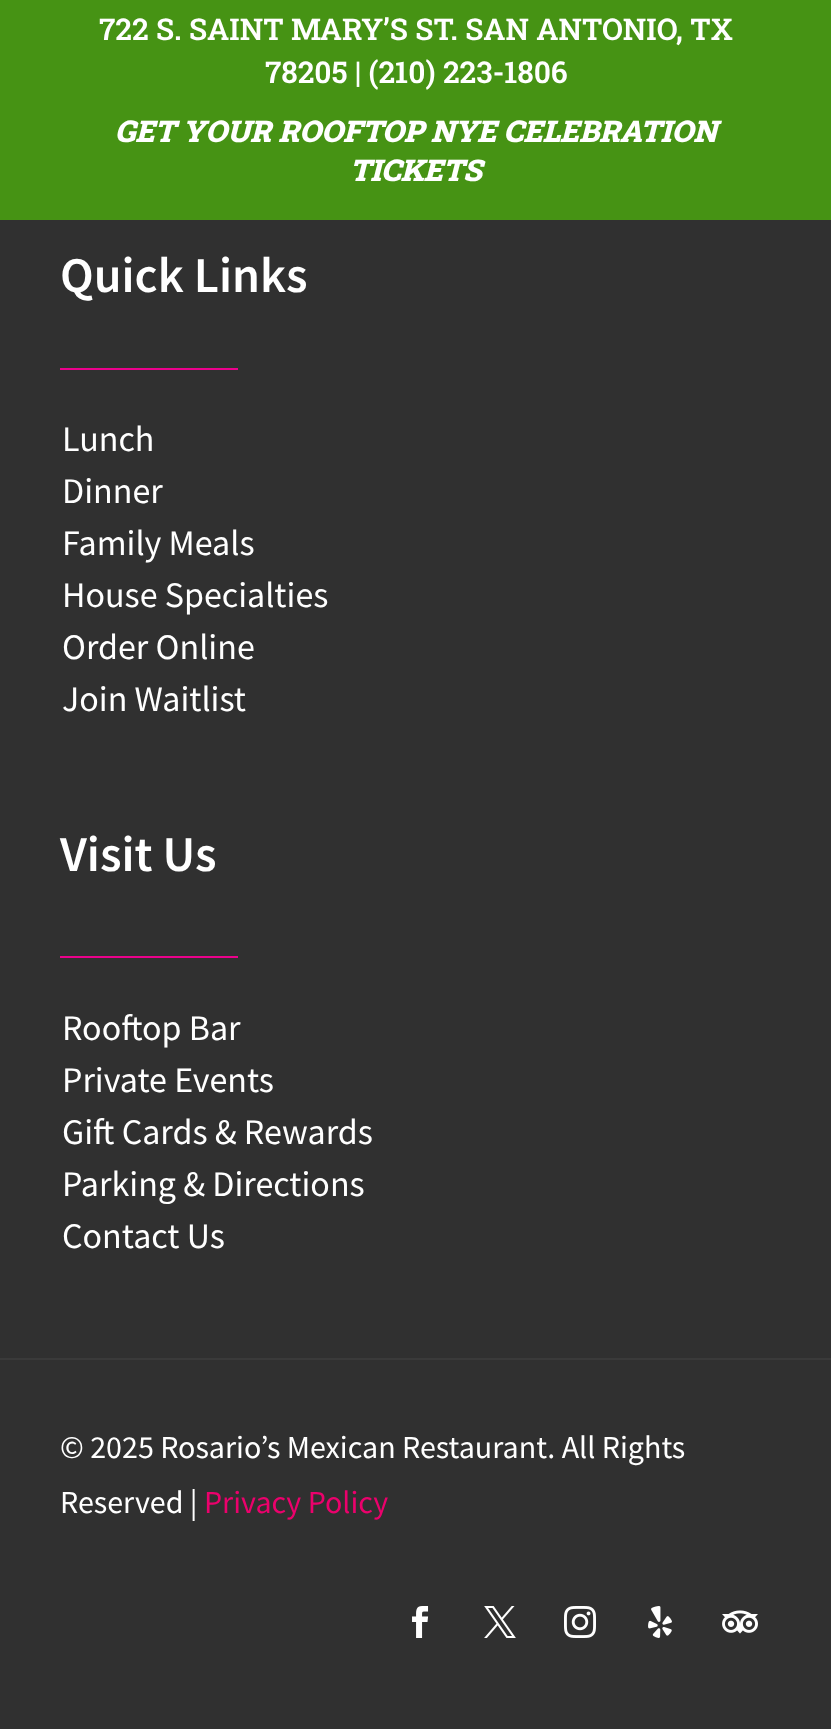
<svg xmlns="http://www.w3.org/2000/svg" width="831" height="1729">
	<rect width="100%" height="100%" fill="#303030" />
	<rect x="0" y="0" width="831" height="220" fill="#469314" />
	<g font-family="Roboto Slab" font-size="30" font-weight="600" fill="#FFFFFF">
		<text x="99" y="40">722 S. SAINT MARY’S ST. SAN ANTONIO, TX</text>
		<text x="265" y="83">78205 | (210) 223-1806</text>
	</g>
	<g font-family="Roboto Slab" font-size="30" font-weight="900" font-style="italic" fill="#FFFFFF">
		<text x="115" y="142">GET YOUR ROOFTOP NYE CELEBRATION</text>
		<text x="350" y="181">TICKETS</text>
	</g>
	<text x="60" y="292" font-family="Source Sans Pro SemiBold" font-size="50" font-weight="600" fill="#FFFFFF">Quick Links</text>
	<rect x="60" y="368" width="178" height="2" fill="#EB018C" />
	<g font-family="Source Sans Pro" font-size="36" fill="#FFFFFF">
		<text x="62" y="451">Lunch</text>
		<text x="62" y="503">Dinner</text>
		<text x="62" y="555">Family Meals</text>
		<text x="62" y="607">House Specialties</text>
		<text x="62" y="659">Order Online</text>
		<text x="62" y="711">Join Waitlist</text>
	</g>
	<text x="60" y="871" font-family="Source Sans Pro SemiBold" font-size="50" font-weight="600" fill="#FFFFFF">Visit Us</text>
	<rect x="60" y="956" width="178" height="2" fill="#EB018C" />
	<g font-family="Source Sans Pro" font-size="36" fill="#FFFFFF">
		<text x="62" y="1040">Rooftop Bar</text>
		<text x="62" y="1092">Private Events</text>
		<text x="62" y="1144">Gift Cards &amp; Rewards</text>
		<text x="62" y="1196">Parking &amp; Directions</text>
		<text x="62" y="1248">Contact Us</text>
	</g>
	<rect x="0" y="1358" width="831" height="2" fill="#3A3A3A" />
	<g font-family="Source Sans Pro" font-size="32" fill="#FFFFFF">
		<text x="60" y="1458">© 2025 Rosario’s Mexican Restaurant. All Rights</text>
		<text x="60" y="1513">Reserved |</text>
	</g>
	<text x="204" y="1513" font-family="Source Sans Pro" font-size="32" fill="#EB016C">Privacy Policy</text>
	<image x="412" y="1606" width="17" height="32" href="assets/img1.png" />
	<image x="484" y="1606" width="32" height="32" href="assets/img2.png" />
	<image x="564" y="1606" width="32" height="32" href="assets/img3.png" />
	<image x="648" y="1606" width="24" height="32" href="assets/img4.png" />
	<image x="722" y="1610" width="36" height="24" href="assets/img5.png" />
</svg>
